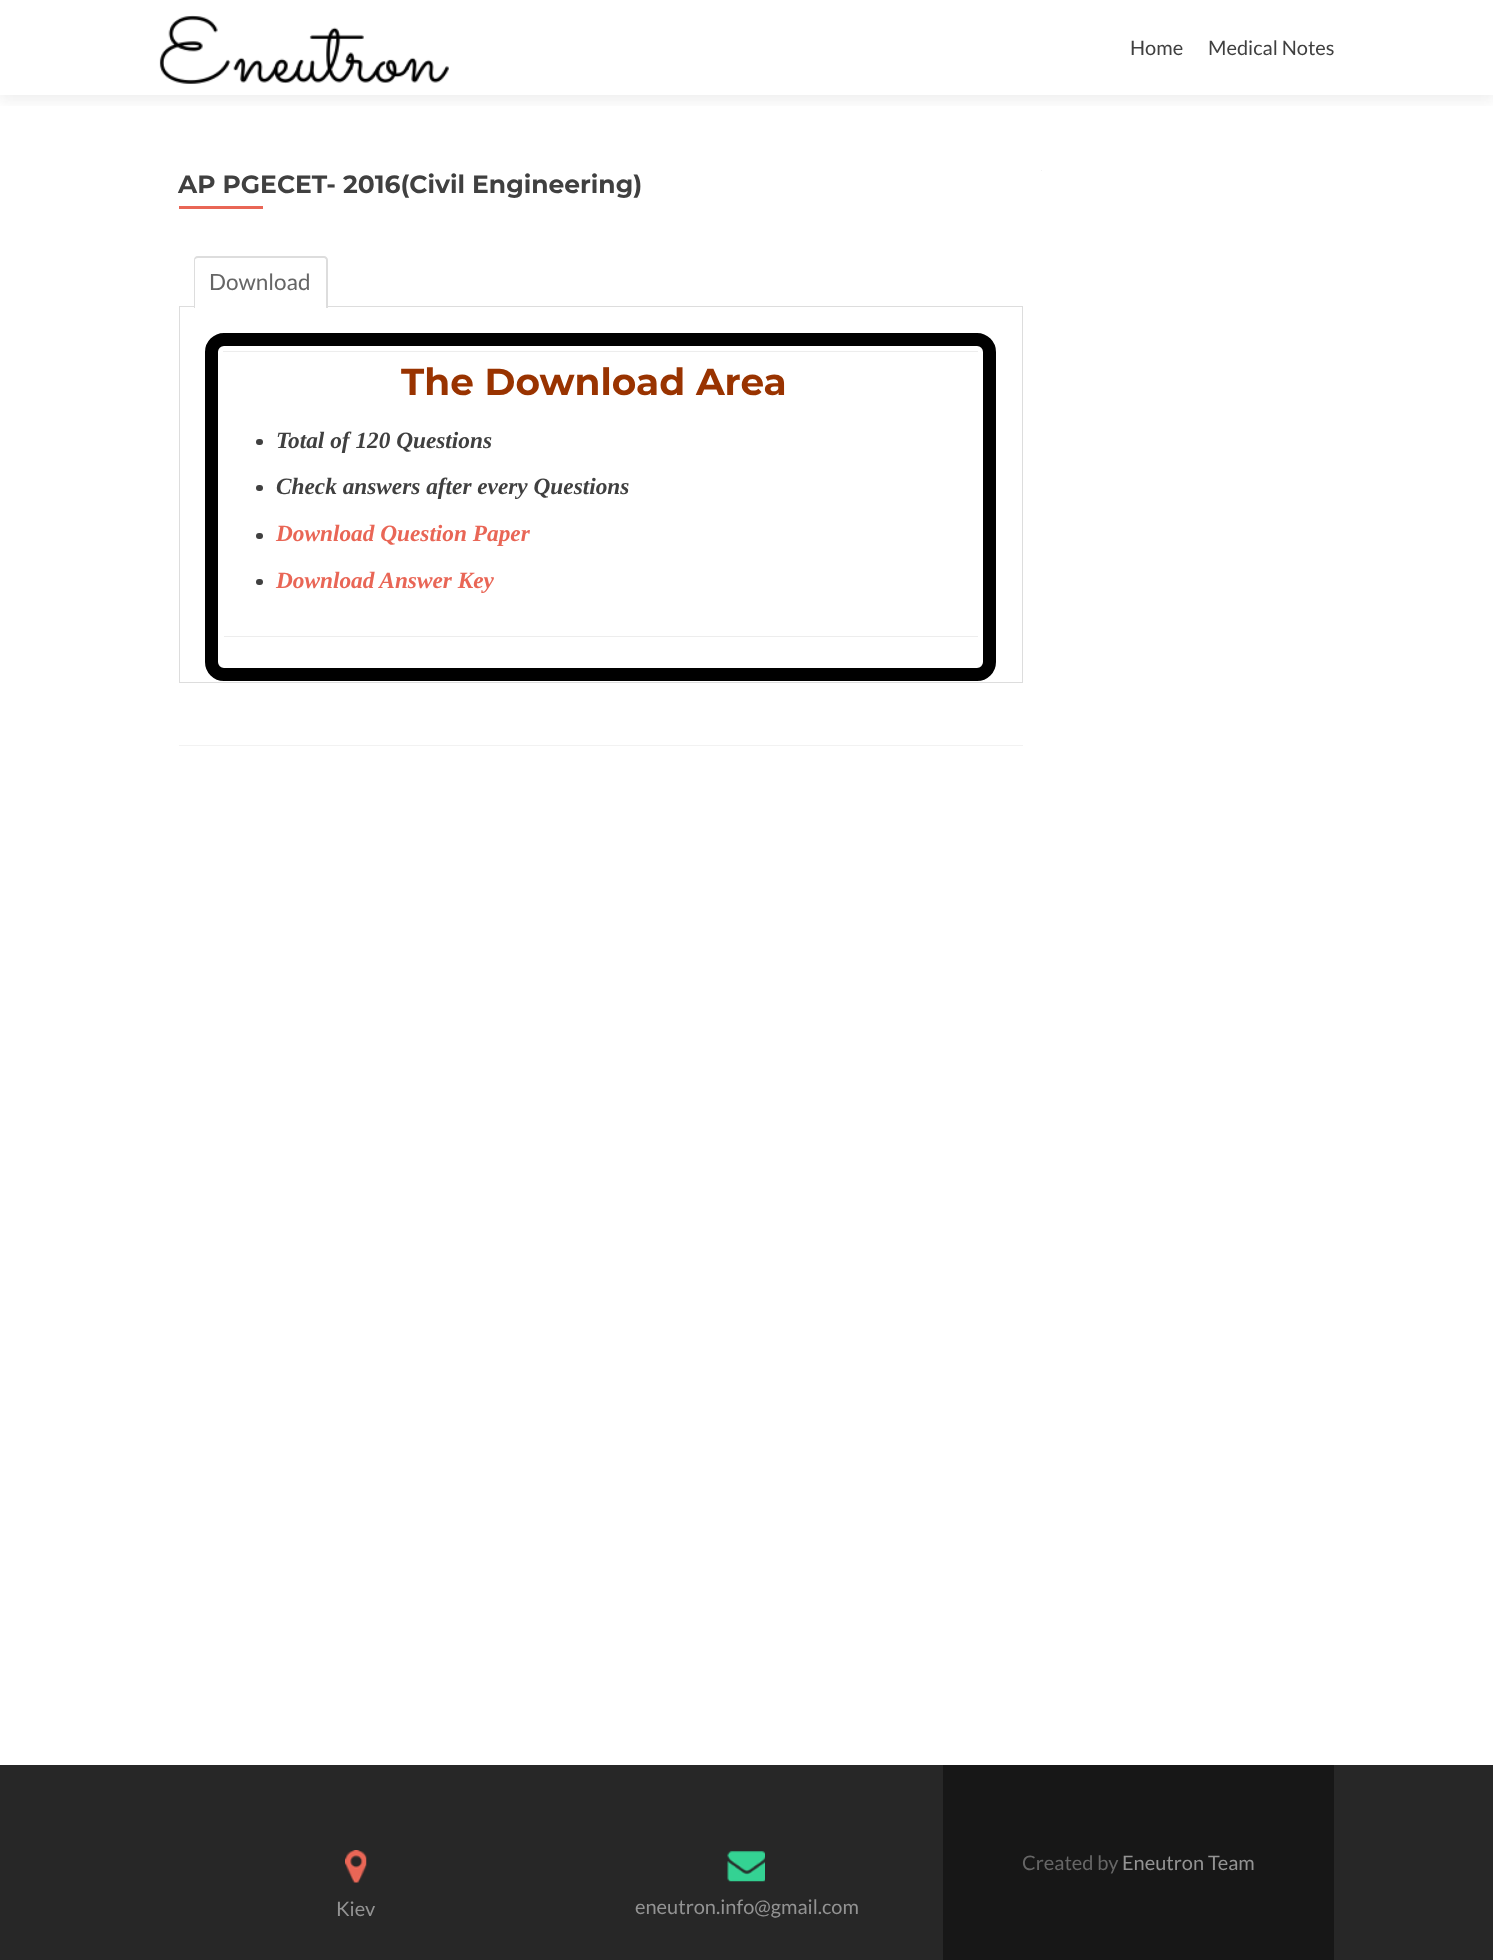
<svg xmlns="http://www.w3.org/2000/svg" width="1493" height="1960">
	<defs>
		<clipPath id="clip1"><rect x="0" y="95" width="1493" height="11" /></clipPath>
	</defs>
	<rect width="100%" height="100%" fill="#FFFFFF" />
	<g clip-path="url(#clip1)">
		<rect x="0" y="6" width="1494" height="95" fill="#323232" fill-opacity="0.08" filter="blur(7px)" />
	</g>
	<image x="159" y="15" width="290" height="69" href="assets/img1.png" />
	<g font-family="Lato" font-size="20" fill="#404040">
		<text x="1130" y="55">Home</text>
		<text x="1208" y="55">Medical Notes</text>
	</g>
	<rect x="1041" y="170" width="1" height="1" fill="#F2F2F2" />
	<rect x="179" y="745" width="844" height="1" fill="#F2F2F2" />
	<text x="178" y="193" font-family="Montserrat" font-size="25" font-weight="700" fill="#404040">AP PGECET- 2016(Civil Engineering)</text>
	<rect x="179" y="206" width="84" height="3" fill="#E96656" />
	<rect x="179.5" y="306.5" width="843" height="376" fill="none" stroke="#DDDDDD" />
	<path d="M198 256H324C326 256 328 258 328 260V308H194V260C194 258 196 256 198 256Z" fill="#FFFFFF" />
	<path d="M198 256H324C326 256 328 258 328 260V308H194V260C194 258 195 256 198 256ZM198 258H324C325 258 326 259 326 260V308H195V260C195 259 196 258 198 258Z" fill="#DDDDDD" fill-rule="evenodd" />
	<text x="209" y="290" font-family="Lato" font-size="22.5" fill="#666666">Download</text>
	<rect x="211.5" y="339.5" width="778" height="335" rx="12.5" fill="none" stroke="#000000" stroke-width="13" />
	<rect x="224" y="636" width="754" height="1" fill="#EDEDED" />
	<rect x="223" y="351" width="755" height="1" fill="#EDEDED" />
	<text x="401" y="395" font-family="Montserrat" font-size="37.5" font-weight="700" fill="#993300">The Download Area</text>
	<rect x="256" y="439" width="7" height="6" rx="3" fill="#404040" />
	<text x="276" y="448" font-family="Liberation Serif" font-size="23.3" font-weight="700" font-style="italic" fill="#404040">Total of 120 Questions</text>
	<rect x="256" y="485" width="7" height="6" rx="3" fill="#404040" />
	<text x="276" y="494" font-family="Liberation Serif" font-size="23.3" font-weight="700" font-style="italic" fill="#404040">Check answers after every Questions</text>
	<rect x="256" y="533" width="7" height="6" rx="3" fill="#404040" />
	<text x="276" y="541" font-family="Liberation Serif" font-size="23.3" font-weight="700" font-style="italic" fill="#E96656">Download Question Paper</text>
	<rect x="256" y="579" width="7" height="6" rx="3" fill="#404040" />
	<text x="276" y="588" font-family="Liberation Serif" font-size="23.3" font-weight="700" font-style="italic" fill="#E96656">Download Answer Key</text>
	<rect x="0" y="1765" width="1493" height="195" fill="#272727" />
	<rect x="943" y="1765" width="391" height="195" fill="#171717" />
	<text x="1022" y="1870" font-family="Lato" font-size="20" fill="#666666">Created by</text>
	<text x="1122" y="1870" font-family="Lato" font-size="20" fill="#939393">Eneutron Team</text>
	<image x="345" y="1850" width="22" height="33" href="assets/img2.png" />
	<text x="336" y="1916" font-family="Lato" font-size="20" fill="#939393">Kiev</text>
	<image x="727" y="1851" width="38" height="31" href="assets/img3.png" />
	<text x="635" y="1914" font-family="Lato" font-size="20" fill="#939393">eneutron.info@gmail.com</text>
</svg>
